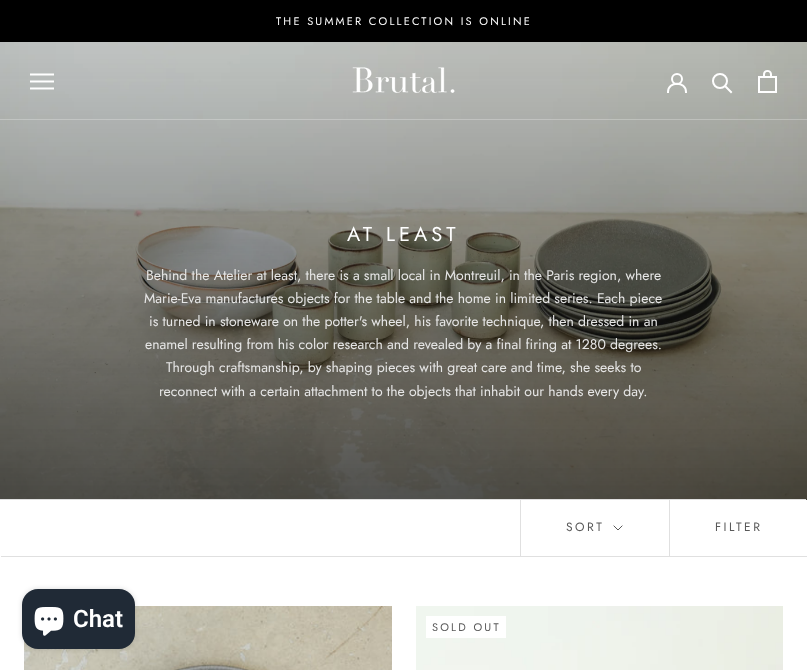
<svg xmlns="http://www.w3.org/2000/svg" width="807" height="670">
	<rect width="100%" height="100%" fill="#FFFFFF" />
	<image x="24" y="606" width="368" height="64" href="assets/img6.png" />
	<rect x="22" y="589" width="113" height="60" rx="16" fill="#000000" fill-opacity="0.15" filter="blur(2.5px)" />
	<rect x="22" y="589" width="113" height="60" rx="16" fill="#202A36" />
	<image x="34" y="607" width="30" height="29" href="assets/img1.png" />
	<text x="73" y="627" font-family="Roboto" font-size="24" font-weight="600" fill="#FFFFFF">Chat</text>
	<rect x="0" y="0" width="807" height="42" fill="#000000" />
	<text x="276" y="25" font-family="Jost" font-size="11" letter-spacing="2.2" fill="#FFFFFF">THE SUMMER COLLECTION IS ONLINE</text>
	<image x="0" y="42" width="807" height="458" href="assets/img5.png" />
	<rect x="0" y="119" width="807" height="1" fill="#FFFFFF" fill-opacity="0.25" />
	<image x="30" y="73" width="24" height="17" href="assets/img2.png" />
	<image x="352" y="67" width="103" height="26" href="assets/img3.png" />
	<path d="M668 92C668 81 686 81 686 92" fill="none" stroke="#FFFFFF" stroke-width="2" stroke-linecap="square" />
	<circle cx="677" cy="79" r="5" fill="none" stroke="#FFFFFF" stroke-width="2" />
	<path d="M731 92L725.5 86.5" fill="none" stroke="#FFFFFF" stroke-width="2" stroke-linecap="square" />
	<circle cx="720" cy="81" r="7" fill="none" stroke="#FFFFFF" stroke-width="2" />
	<image x="758" y="70" width="19" height="23" href="assets/img4.png" />
	<text x="347" y="241" font-family="Jost" font-size="20" letter-spacing="4" fill="#FFFFFF">AT LEAST</text>
	<g font-family="Jost" font-size="14" fill="#E6E6E6">
		<text x="146" y="280">Behind the Atelier at least, there is a small local in Montreuil, in the Paris region, where</text>
		<text x="144" y="303">Marie-Eva manufactures objects for the table and the home in limited series. Each piece</text>
		<text x="149" y="326">is turned in stoneware on the potter's wheel, his favorite technique, then dressed in an</text>
		<text x="145" y="349">enamel resulting from his color research and revealed by a final firing at 1280 degrees.</text>
		<text x="166" y="372">Through craftsmanship, by shaping pieces with great care and time, she seeks to</text>
		<text x="159" y="396">reconnect with a certain attachment to the objects that inhabit our hands every day.</text>
	</g>
	<path d="M-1 499V555H0V500H806V499Z" fill="#E0E0E0" />
	<path d="M1 556V557H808V501H807V556Z" fill="#E0E0E0" />
	<rect x="520" y="500" width="1" height="56" fill="#E0E0E0" />
	<text x="566" y="531" font-family="Jost" font-size="12" letter-spacing="2.5" fill="#595959">SORT</text>
	<path d="M622 526L618 530L614 526" fill="none" stroke="#595959" stroke-linecap="square" />
	<rect x="669" y="500" width="1" height="56" fill="#E0E0E0" />
	<text x="715" y="531" font-family="Jost" font-size="12" letter-spacing="2.5" fill="#595959">FILTER</text>
	<image x="416" y="606" width="367" height="64" href="assets/img7.png" />
	<rect x="426" y="616" width="80" height="22" fill="#FFFFFF" />
	<text x="432" y="631" font-family="Jost" font-size="11" letter-spacing="2.2" fill="#595959">SOLD OUT</text>
</svg>
